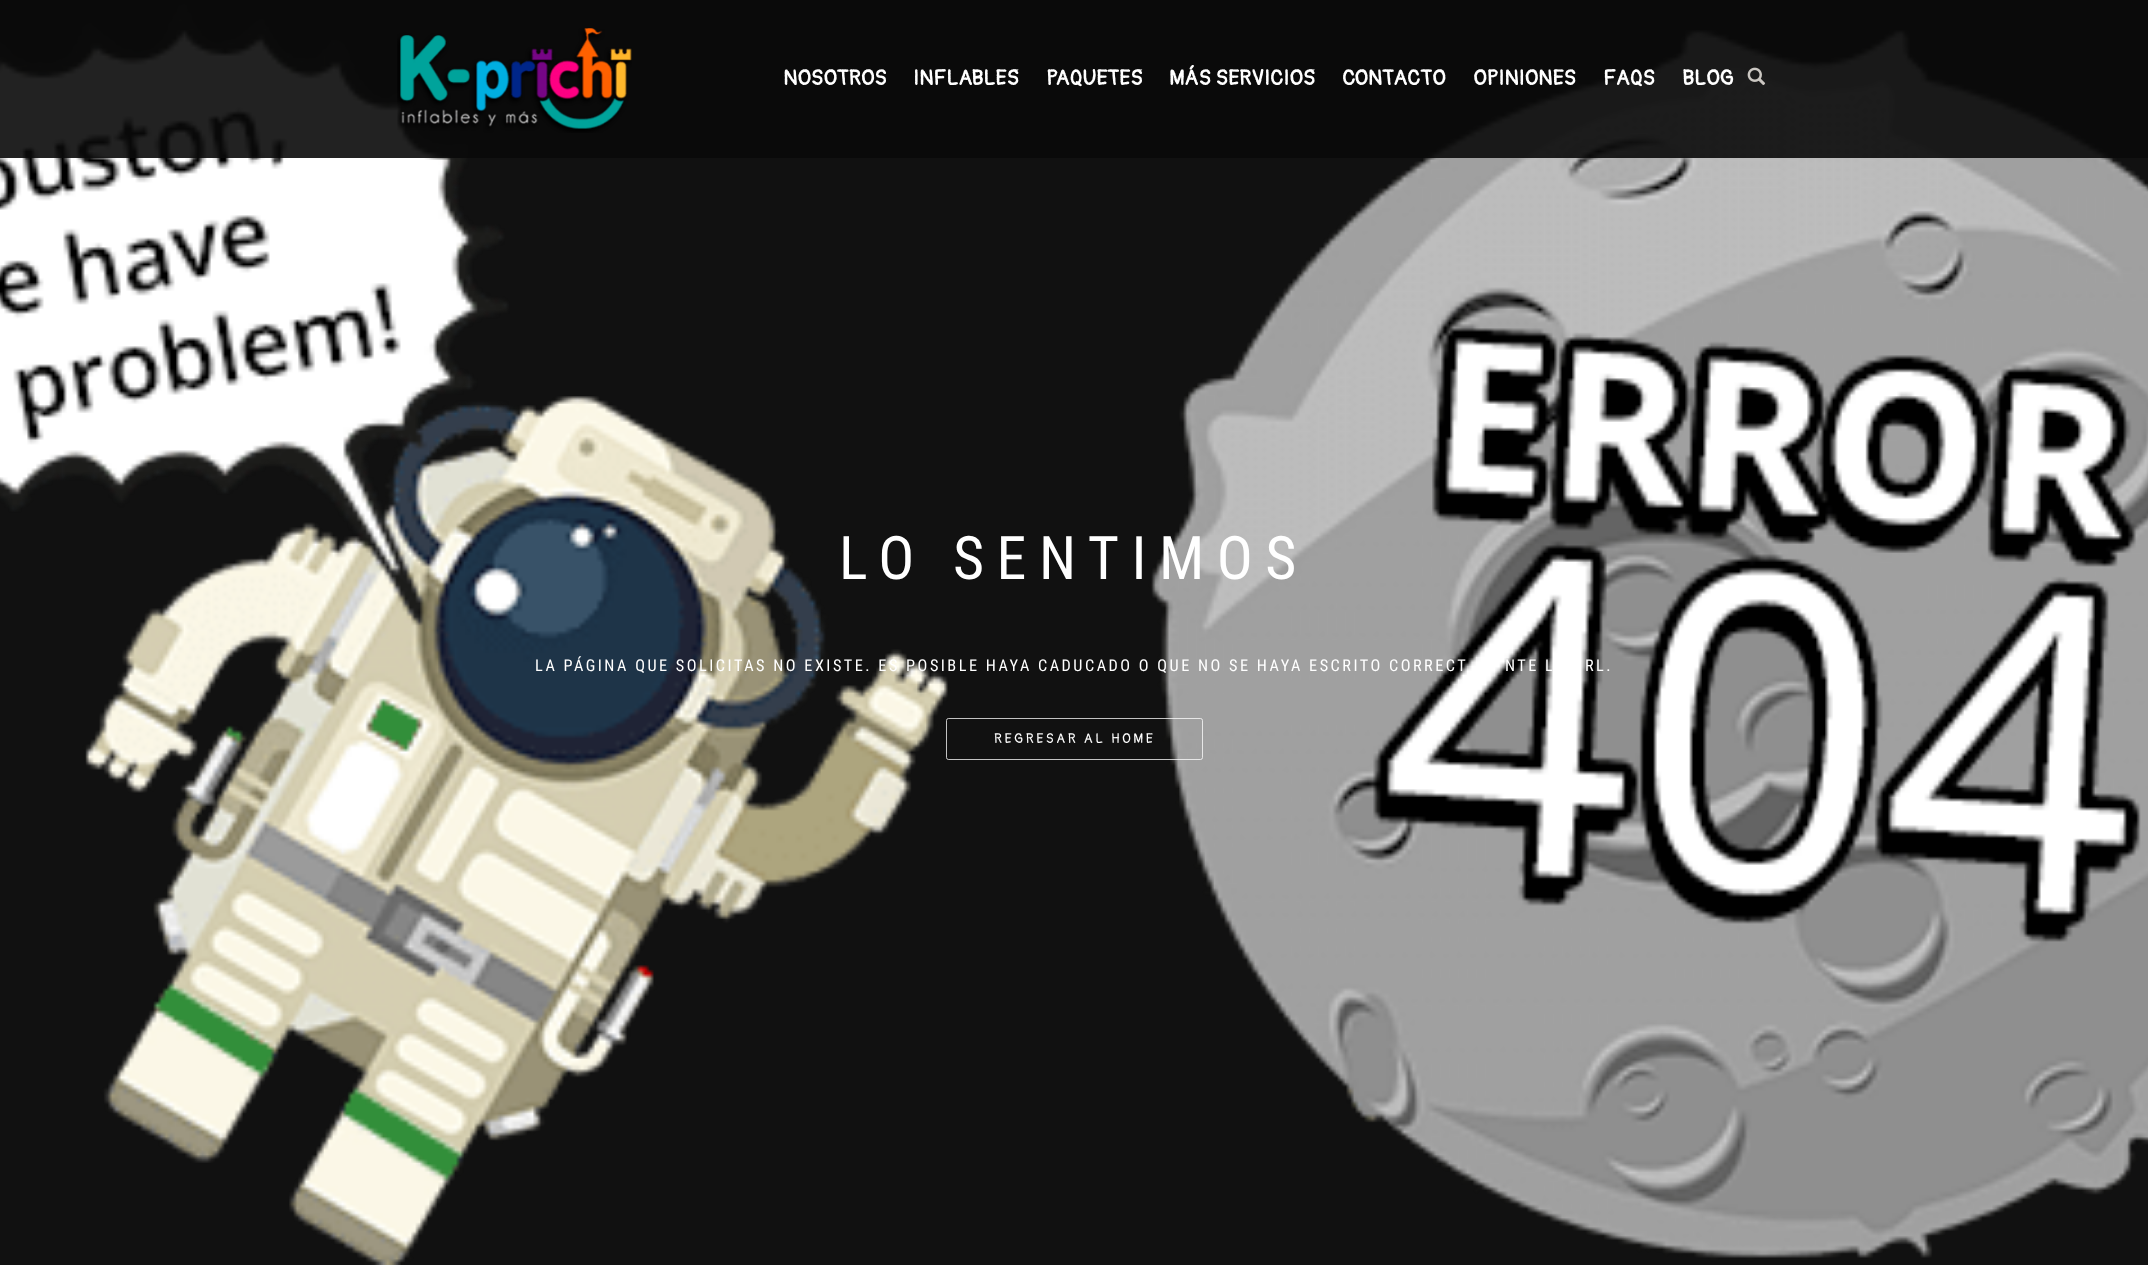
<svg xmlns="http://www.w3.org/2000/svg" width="2148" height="1265">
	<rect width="100%" height="100%" fill="#111111" />
	<image x="0" y="4" width="2148" height="1261" href="assets/img6.png" />
	<rect x="0" y="0" width="2148" height="158" fill="#0A0A0A" fill-opacity="0.9" />
	<image x="397" y="28" width="235" height="105" href="assets/img1.png" />
	<g font-family="Pangolin" font-size="21.25" font-weight="700" fill="#FFFFFF">
		<text x="783" y="85">NOSOTROS</text>
		<text x="913" y="85">INFLABLES</text>
	</g>
	<image x="1012" y="69" width="7" height="4" href="assets/img2.png" />
	<text x="1046" y="85" font-family="Pangolin" font-size="21.25" font-weight="700" fill="#FFFFFF">PAQUETES</text>
	<image x="1136" y="69" width="7" height="4" href="assets/img3.png" />
	<text x="1169" y="85" font-family="Pangolin" font-size="21.25" font-weight="700" fill="#FFFFFF">MÁS SERVICIOS</text>
	<image x="1309" y="69" width="6" height="4" href="assets/img4.png" />
	<g font-family="Pangolin" font-size="21.25" font-weight="700" fill="#FFFFFF">
		<text x="1342" y="85">CONTACTO</text>
		<text x="1473" y="85">OPINIONES</text>
		<text x="1603" y="85">FAQS</text>
		<text x="1682" y="85">BLOG</text>
	</g>
	<image x="1747" y="67" width="19" height="19" href="assets/img5.png" />
	<text x="839" y="579" font-family="Roboto Condensed" font-size="60" letter-spacing="12.5" fill="#FFFFFF">LO SENTIMOS</text>
	<g font-family="Roboto Condensed" font-size="16.25" letter-spacing="2.5" fill="#FFFFFF">
		<text x="535" y="671">LA PÁGINA QUE SOLICITAS NO EXISTE. ES POSIBLE HAYA CADUCADO O QUE NO SE HAYA ESCRITO CORRECT</text>
		<text x="1505" y="671">NTE L</text>
		<text x="1585" y="671">RL.</text>
	</g>
	<rect x="946.5" y="718.5" width="256" height="41" rx="2" fill="none" stroke="#FFFFFF" stroke-opacity="0.75" />
	<text x="994" y="743" font-family="Pangolin" font-size="13.75" letter-spacing="2.5" fill="#FFFFFF">REGRESAR AL HOME</text>
</svg>
